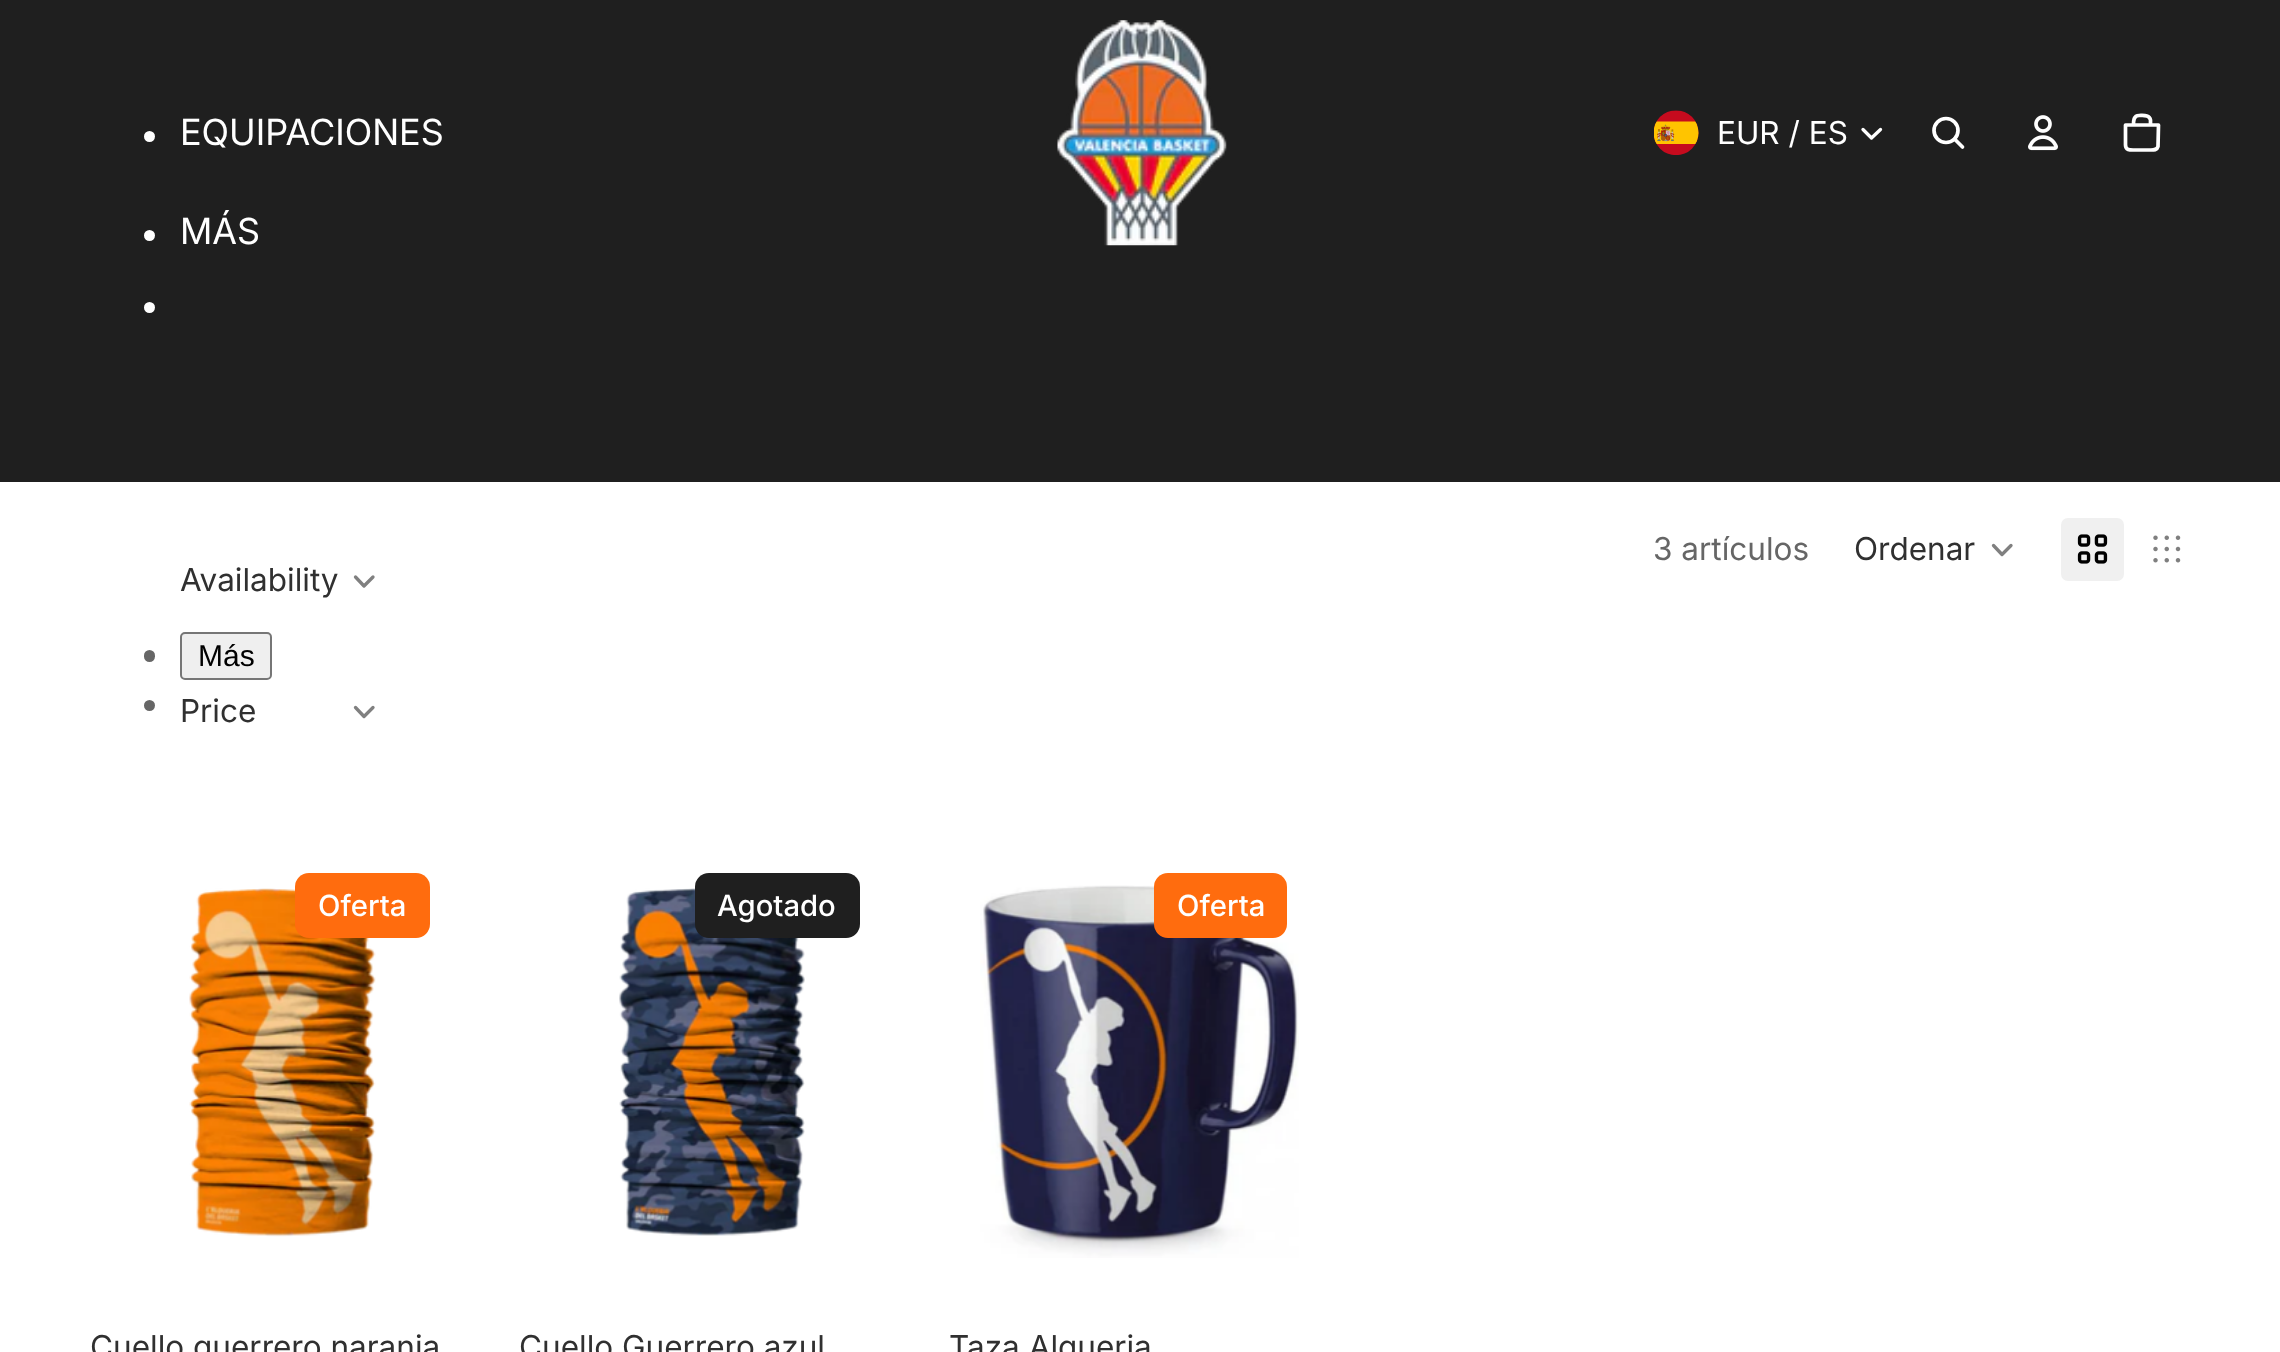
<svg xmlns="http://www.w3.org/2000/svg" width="2280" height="1352">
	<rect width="100%" height="100%" fill="#FFFFFF" />
	<rect x="0" y="0" width="2280" height="482" fill="#1F1F1F" />
	<circle cx="149.5" cy="136.5" r="5.5" fill="#FFFFFF" />
	<text x="180" y="145" font-family="Inter" font-size="36" fill="#FFFFFF">EQUIPACIONES</text>
	<circle cx="149.5" cy="235.5" r="5.5" fill="#FFFFFF" />
	<text x="180" y="244" font-family="Inter" font-size="36" fill="#FFFFFF">MÁS</text>
	<circle cx="149.5" cy="307.5" r="5.5" fill="#FFFFFF" />
	<image x="1057" y="20" width="170" height="226" href="assets/img1.png" />
	<image x="1654" y="110" width="45" height="45" href="assets/img2.png" />
	<text x="1717" y="144" font-family="'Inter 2'" font-size="31.5" fill="#FFFFFF">EUR / ES</text>
	<path d="M1880.5 129.5L1871.5 138L1863 129.5" fill="none" stroke="#FFFFFF" stroke-width="3.3" stroke-linecap="round" stroke-linejoin="round" />
	<circle cx="1946" cy="130.5" r="12" fill="none" stroke="#FFFFFF" stroke-width="3.7" />
	<path d="M1954.5 139L1962.5 147" fill="none" stroke="#FFFFFF" stroke-width="3.7" stroke-linecap="round" stroke-linejoin="round" />
	<image x="2028" y="115" width="30" height="36" href="assets/img3.png" />
	<path d="M2125.5 125H2158.5L2158 146.5C2157 150.5 2153 150 2149.5 150H2134.5C2130.5 150 2125.5 150.5 2125.5 145ZM2139 115.5C2143.5 115.5 2149.5 114.5 2150.5 120V125H2133.5C2133.5 121 2133.5 115.5 2139 115.5" fill="none" stroke="#FFFFFF" stroke-width="3.7" stroke-linecap="round" stroke-linejoin="round" />
	<text x="1653" y="560" font-family="'Inter 2'" font-size="31.5" fill="#666666">3 artículos</text>
	<text x="1854" y="560" font-family="'Inter 2'" font-size="31.5" fill="#303030">Ordenar</text>
	<path d="M2011 545.5L2002 554.5L1993.5 545.5" fill="none" stroke="#808080" stroke-width="3.3" stroke-linecap="round" stroke-linejoin="round" />
	<rect x="2061" y="518" width="63" height="63" rx="7" fill="#F0F0F0" />
	<image x="2077" y="534" width="31" height="30" href="assets/img4.png" />
	<image x="2153" y="535" width="28" height="28" href="assets/img5.png" />
	<text x="180" y="591" font-family="'Inter 2'" font-size="31.5" fill="#303030">Availability</text>
	<path d="M373 577L364 586L355.5 577" fill="none" stroke="#808080" stroke-width="3.3" stroke-linecap="round" stroke-linejoin="round" />
	<rect x="144" y="650" width="11" height="12" rx="5.5" fill="#666666" />
	<rect x="181" y="633" width="90" height="46" rx="4" fill="#EFEFEF" stroke="#767676" stroke-width="2" />
	<text x="198" y="666" font-family="Liberation Sans" font-size="30" fill="#000000">Más</text>
	<circle cx="149.5" cy="705.5" r="5.5" fill="#666666" />
	<text x="180" y="722" font-family="'Inter 2'" font-size="31.5" fill="#303030">Price</text>
	<path d="M373 707.5L364 716.5L355.5 707.5" fill="none" stroke="#808080" stroke-width="3.3" stroke-linecap="round" stroke-linejoin="round" />
	<image x="189" y="888" width="187" height="349" href="assets/img6.png" />
	<rect x="295" y="873" width="135" height="65" rx="14" fill="#FF6C0E" />
	<text x="318" y="916" font-family="Inter" font-size="29.25" font-weight="500" fill="#FFFFFF">Oferta</text>
	<text x="90" y="1358" font-family="'Inter 2'" font-size="31.5" fill="#303030">Cuello guerrero naranja</text>
	<image x="619" y="888" width="186" height="348" href="assets/img7.png" />
	<rect x="695" y="873" width="165" height="65" rx="14" fill="#1F1F1F" />
	<text x="717" y="916" font-family="Inter" font-size="29.25" font-weight="500" fill="#FFFFFF">Agotado</text>
	<text x="519" y="1358" font-family="'Inter 2'" font-size="31.5" fill="#303030">Cuello Guerrero azul</text>
	<image x="980" y="885" width="319" height="373" href="assets/img8.png" />
	<rect x="1154" y="873" width="133" height="65" rx="14" fill="#FF6C0E" />
	<text x="1177" y="916" font-family="Inter" font-size="29.25" font-weight="500" fill="#FFFFFF">Oferta</text>
	<text x="949" y="1358" font-family="'Inter 2'" font-size="31.5" fill="#303030">Taza Alqueria</text>
</svg>
